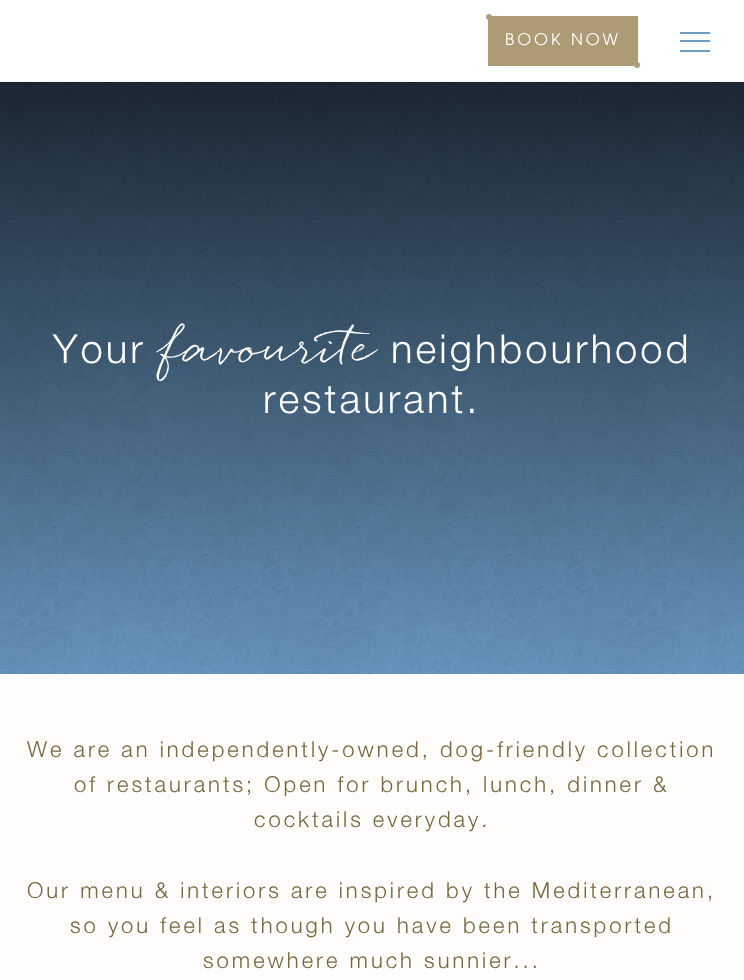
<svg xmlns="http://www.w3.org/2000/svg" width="744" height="980">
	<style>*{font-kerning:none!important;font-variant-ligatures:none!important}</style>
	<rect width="100%" height="100%" fill="#FFFDFB" />
	<rect x="0" y="0" width="744" height="81" fill="#FFFFFF" />
	<rect x="488" y="16" width="150" height="50" fill="#AC9B75" />
	<circle cx="489" cy="17" r="3" fill="#AC9B75" />
	<text x="505" y="45" font-family="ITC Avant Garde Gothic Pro" font-size="16" font-weight="300" letter-spacing="3" fill="#FFFFFF">BOOK NOW</text>
	<circle cx="637" cy="65" r="3" fill="#AC9B75" />
	<rect x="680" y="32" width="30" height="2" fill="#6E9FC9" />
	<rect x="680" y="40" width="30" height="2" fill="#6E9FC9" />
	<rect x="680" y="50" width="30" height="2" fill="#6E9FC9" />
	<rect x="0" y="81" width="744" height="1" fill="#EFF5F9" />
	<image x="0" y="82" width="744" height="592" href="assets/img1.png" />
	<text x="53" y="363" font-family="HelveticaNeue" font-size="40" font-weight="300" letter-spacing="3" fill="#FFFFFF">Your</text>
	<text x="160" y="363" font-family="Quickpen" font-size="50" fill="#FFFFFF">favourite</text>
	<g font-family="HelveticaNeue" font-size="40" font-weight="300" letter-spacing="3" fill="#FFFFFF">
		<text x="391" y="363">neighbourhood</text>
		<text x="263" y="413">restaurant.</text>
	</g>
	<g font-family="HelveticaNeue" font-size="22" font-weight="300" letter-spacing="3" fill="#77663D">
		<text x="27" y="757">We are an independently-owned, dog-friendly collection</text>
		<text x="74" y="792">of restaurants; Open for brunch, lunch, dinner &amp;</text>
		<text x="254" y="827">cocktails everyday.</text>
		<text x="27" y="898">Our menu &amp; interiors are inspired by the Mediterranean,</text>
		<text x="70" y="933">so you feel as though you have been transported</text>
		<text x="203" y="968">somewhere much sunnier...</text>
	</g>
</svg>
